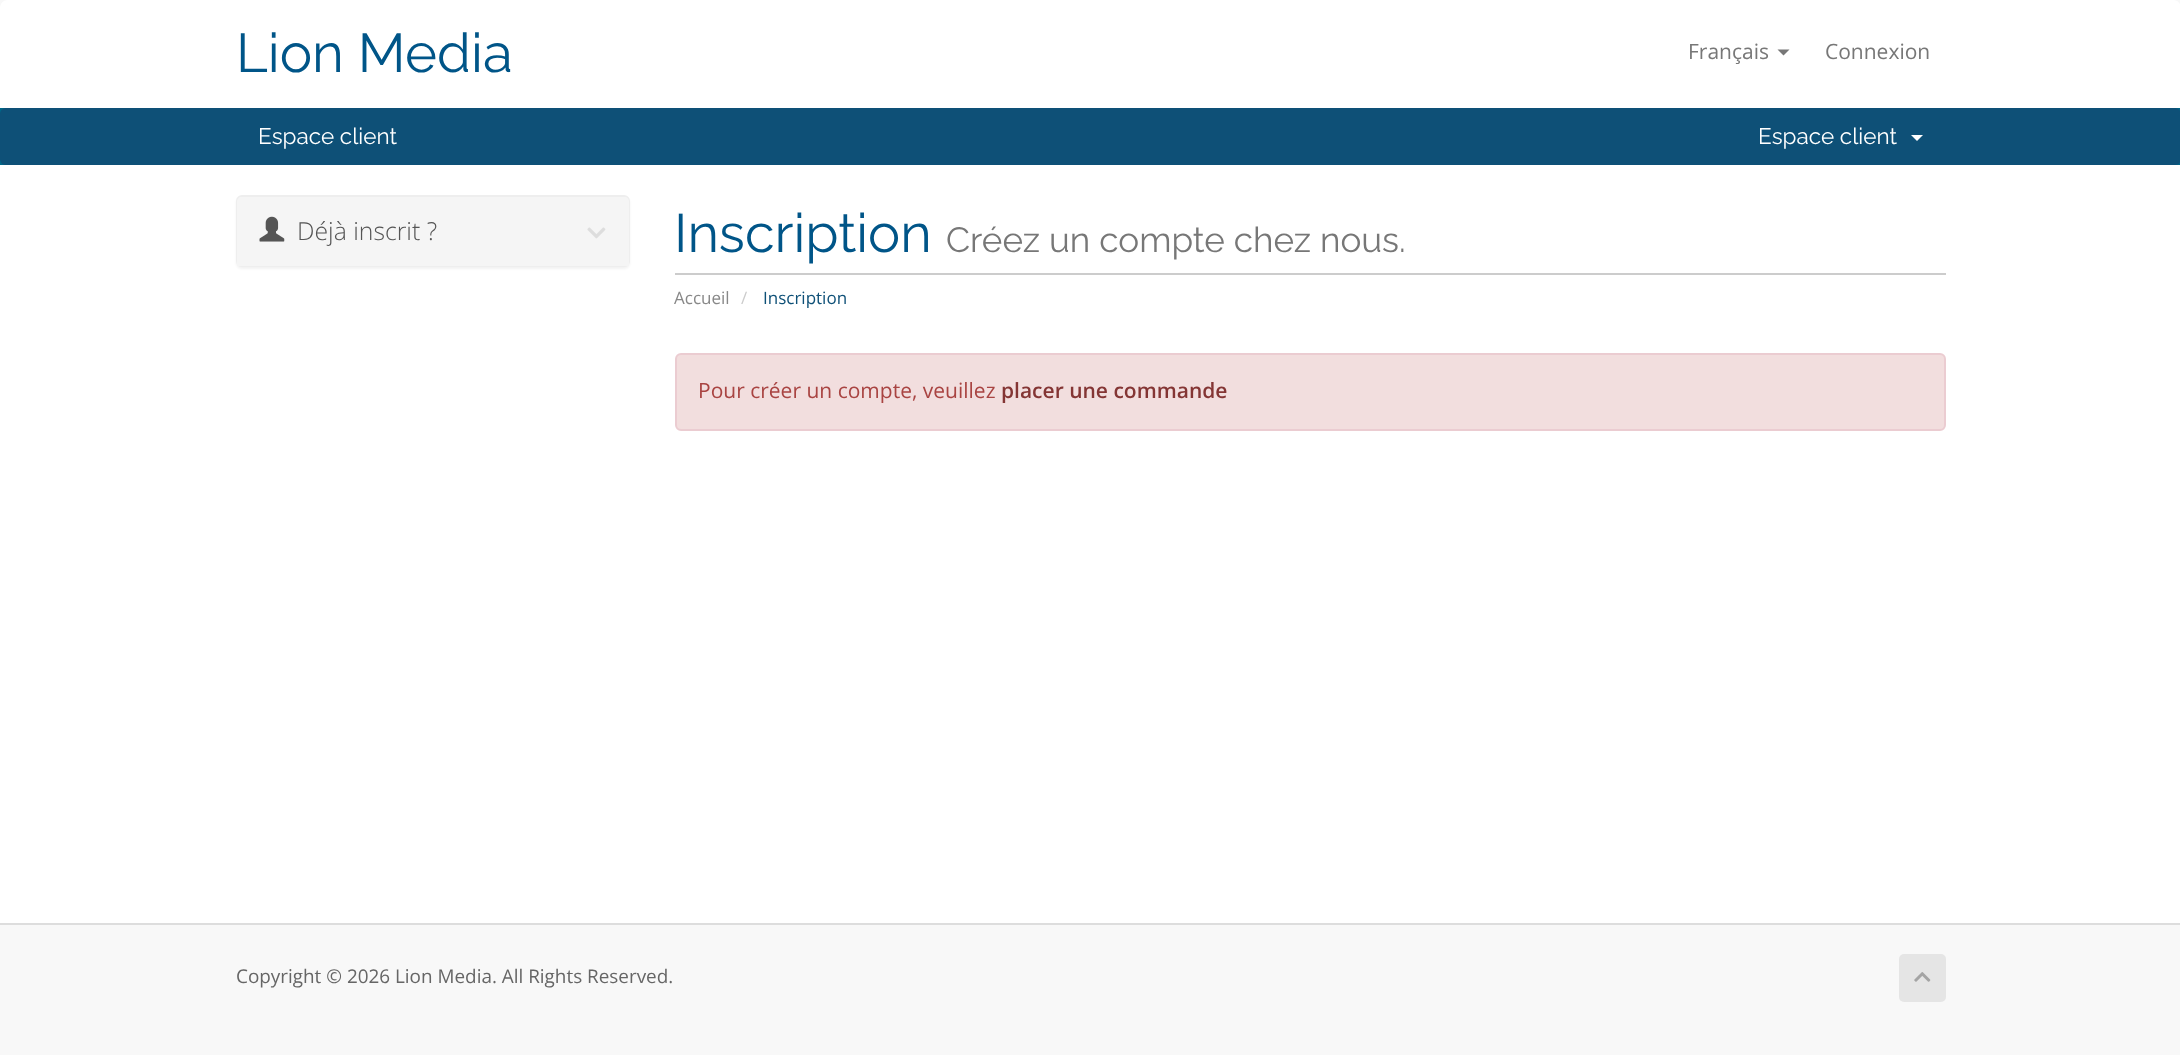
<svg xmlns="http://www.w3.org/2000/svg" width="2180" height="1055">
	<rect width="100%" height="100%" fill="#F8F8F8" />
	<path d="M8 0H2173C2177.5 0 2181 3.5 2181 8V108H0V8C0 3.5 3.5 0 8 0Z" fill="#FFFFFF" />
	<text x="236" y="72" font-family="Raleway" font-size="54.5" fill="#005588">Lion Media</text>
	<text x="1688" y="59" font-family="Open Sans" font-size="21" fill="#777777">Français</text>
	<path d="M1777.5 49.5H1789.5L1783.5 55.5Z" fill="#777777" />
	<text x="1825" y="59" font-family="Open Sans" font-size="21" fill="#777777">Connexion</text>
	<rect x="0" y="108" width="2180" height="57" fill="#006687" />
	<rect x="0" y="108" width="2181" height="57" rx="6" fill="#0E5077" />
	<g font-family="Raleway" font-size="22.5" fill="#FFFFFF">
		<text x="258" y="144">Espace client</text>
		<text x="1758" y="144">Espace client</text>
	</g>
	<path d="M1911 135H1923L1917 141Z" fill="#FFFFFF" />
	<rect x="0" y="165" width="2180" height="758" fill="#FFFFFF" />
	<rect x="236" y="197" width="394" height="72" rx="6" fill="#000000" fill-opacity="0.05" filter="blur(1px)" />
	<rect x="237" y="196" width="392" height="70" rx="5" fill="none" stroke="#EEEEEE" stroke-width="2" />
	<path d="M242 197H624C627 197 629 199 629 202V266H237V202C237 199 239 197 242 197Z" fill="#F5F5F5" />
	<image x="259" y="216" width="26" height="26" href="assets/img1.png" />
	<text x="297" y="240" font-family="Open Sans" font-size="24.75" font-weight="300" fill="#555555">Déjà inscrit ?</text>
	<image x="587" y="227" width="19" height="12" href="assets/img2.png" />
	<rect x="675" y="273" width="1271" height="2" fill="#CCCCCC" />
	<text x="674" y="252" font-family="Raleway" font-size="54" fill="#005588">Inscription</text>
	<text x="946" y="252" font-family="Raleway" font-size="35.1" fill="#777777">Créez un compte chez nous.</text>
	<text x="674" y="304" font-family="Open Sans" font-size="17" fill="#888888">Accueil</text>
	<text x="741" y="304" font-family="Open Sans" font-size="17" fill="#CCCCCC">/</text>
	<text x="763" y="304" font-family="Open Sans" font-size="17" fill="#0E5077">Inscription</text>
	<rect x="676" y="354" width="1269" height="76" rx="5" fill="#F2DEDE" stroke="#EBCCD1" stroke-width="2" />
	<text x="698" y="398" font-family="Open Sans" font-size="21" fill="#A94442">Pour créer un compte, veuillez</text>
	<text x="1001" y="398" font-family="Open Sans" font-size="21" font-weight="600" fill="#843534">placer une commande</text>
	<rect x="0" y="923" width="2180" height="2" fill="#DDDDDD" />
	<text x="236" y="983" font-family="Open Sans" font-size="18.9" fill="#666666">Copyright © 2026 Lion Media. All Rights Reserved.</text>
	<rect x="1899" y="954" width="47" height="48" rx="5" fill="#E5E5E5" />
	<image x="1914" y="972" width="17" height="10" href="assets/img3.png" />
</svg>
